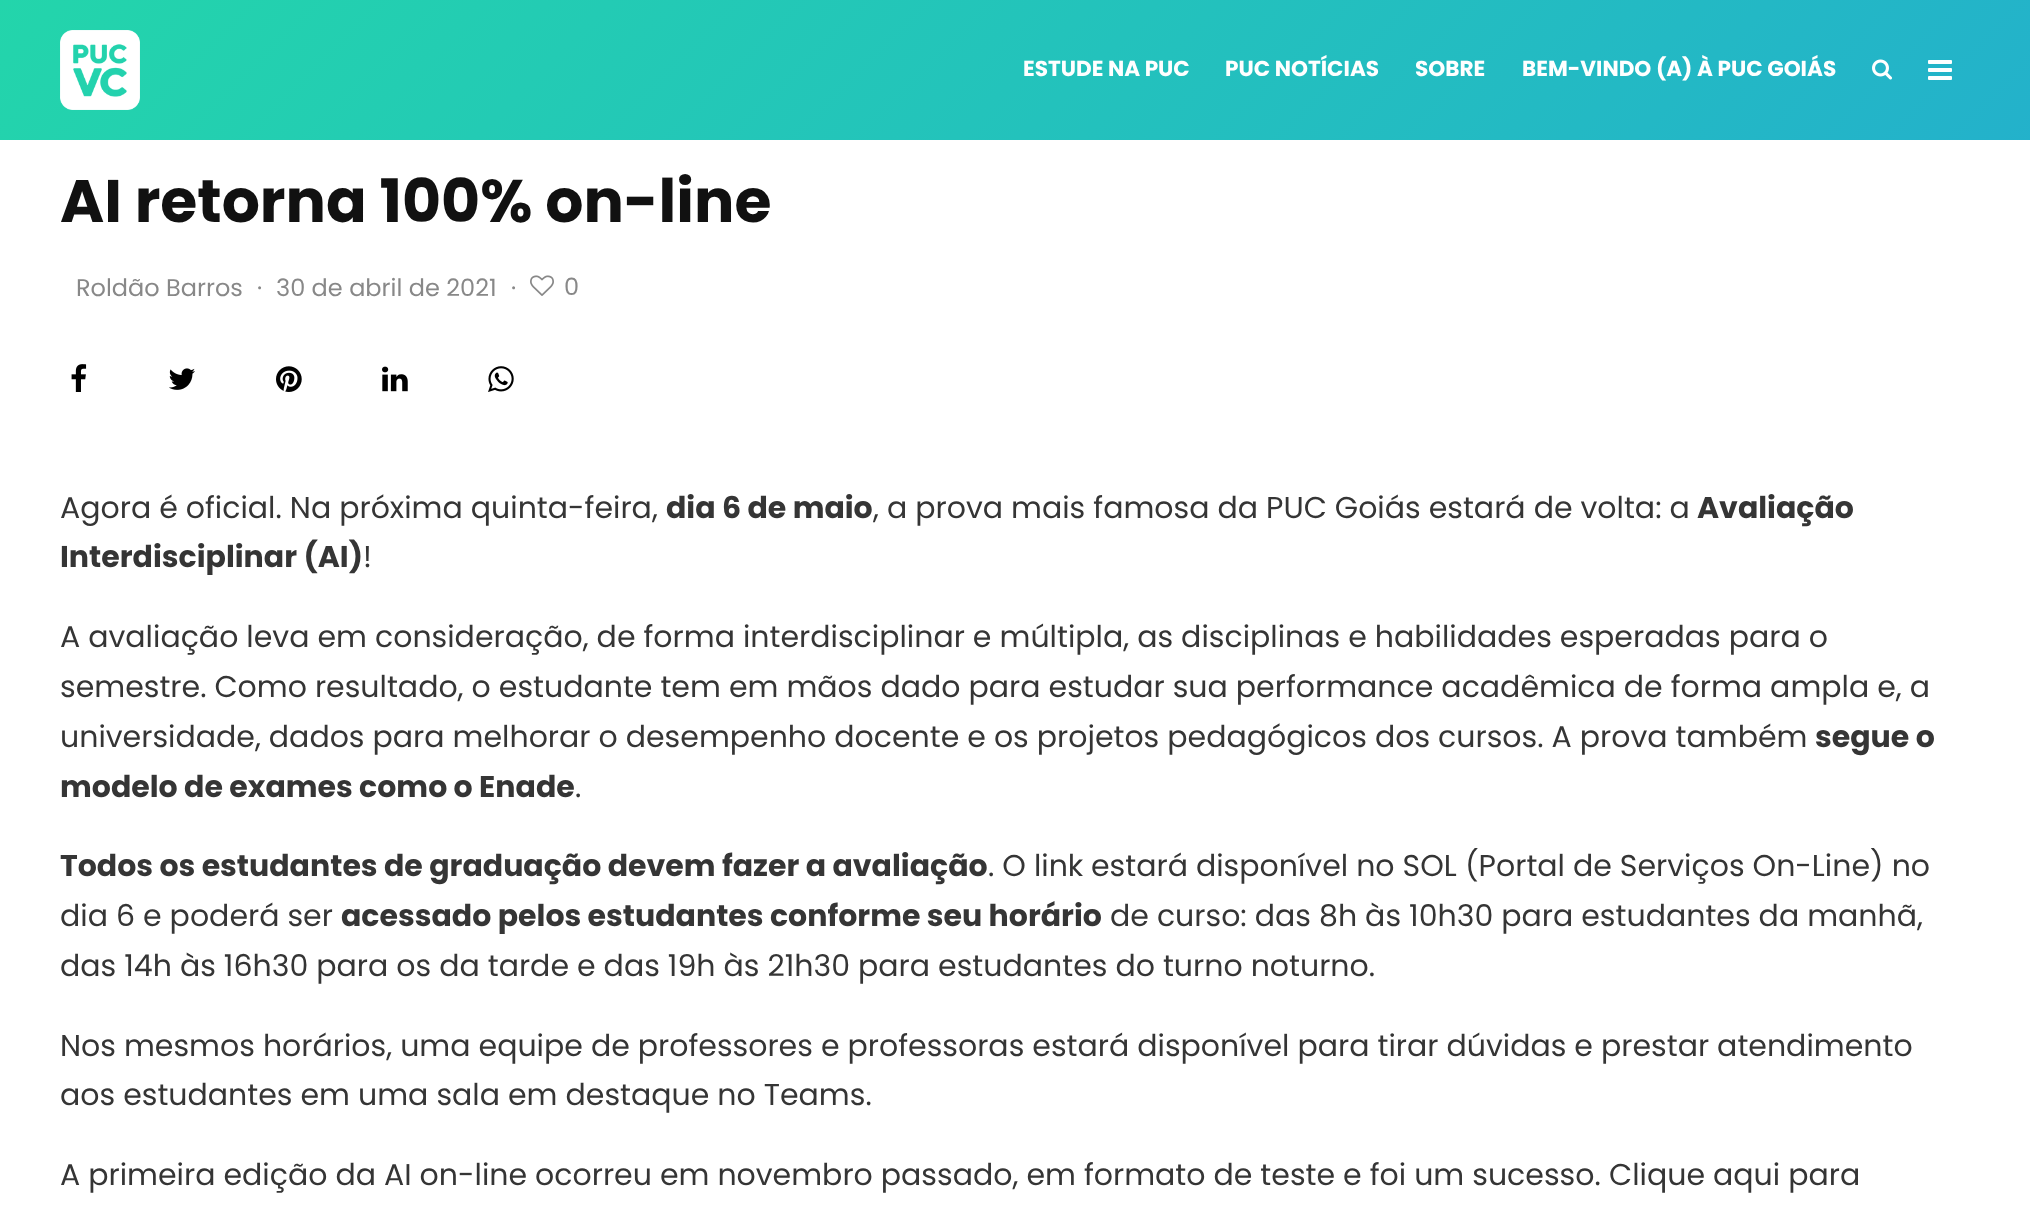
<svg xmlns="http://www.w3.org/2000/svg" width="2030" height="1209">
	<defs>
		<linearGradient id="g1" gradientUnits="userSpaceOnUse" x1="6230" y1="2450" x2="1890" y2="-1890"><stop offset="0" stop-color="#EE7752" /><stop offset="0.33" stop-color="#E73C7E" /><stop offset="0.67" stop-color="#23A6D5" /><stop offset="1" stop-color="#23D5AB" /></linearGradient>
	</defs>
	<rect width="100%" height="100%" fill="#FFFFFF" />
	<rect x="0" y="0" width="2030" height="140" fill="url(#g1)" />
	<image x="60" y="30" width="80" height="80" href="assets/img1.png" />
	<g font-family="Poppins" font-size="21.6" font-weight="700" fill="#FFFFFF">
		<text x="1023" y="76">ESTUDE NA PUC</text>
		<text x="1225" y="76">PUC NOTÍCIAS</text>
		<text x="1415" y="76">SOBRE</text>
		<text x="1522" y="76">BEM-VINDO (A) À PUC GOIÁS</text>
	</g>
	<image x="1872" y="59" width="20" height="21" href="assets/img2.png" />
	<image x="1928" y="60" width="24" height="20" href="assets/img3.png" />
	<text x="60" y="222" font-family="Poppins" font-size="60" font-weight="700" fill="#111111">AI retorna 100% on-line</text>
	<g font-family="Poppins" font-size="24" fill="#888888">
		<text x="76" y="296">Roldão Barros</text>
		<text x="257" y="296">·</text>
		<text x="276" y="296">30 de abril de 2021</text>
		<text x="511" y="296">·</text>
	</g>
	<image x="530" y="275" width="24" height="21" href="assets/img4.png" />
	<text x="564" y="295" font-family="Poppins" font-size="24" fill="#888888">0</text>
	<image x="71" y="364" width="16" height="28" href="assets/img5.png" />
	<image x="169" y="368" width="26" height="22" href="assets/img6.png" />
	<image x="276" y="366" width="26" height="26" href="assets/img7.png" />
	<image x="382" y="366" width="26" height="26" href="assets/img8.png" />
	<image x="488" y="366" width="26" height="26" href="assets/img9.png" />
	<text x="60" y="518" font-family="Poppins" font-size="30" fill="#353535">Agora é oficial. Na próxima quinta-feira,</text>
	<text x="666" y="518" font-family="Poppins" font-size="30" font-weight="700" fill="#353535">dia 6 de maio</text>
	<text x="873" y="518" font-family="Poppins" font-size="30" fill="#353535">, a prova mais famosa da PUC Goiás estará de volta: a</text>
	<g font-family="Poppins" font-size="30" font-weight="700" fill="#353535">
		<text x="1697" y="518">Avaliação</text>
		<text x="60" y="567">Interdisciplinar (AI)</text>
	</g>
	<g font-family="Poppins" font-size="30" fill="#353535">
		<text x="363" y="567">!</text>
		<text x="60" y="647">A avaliação leva em consideração, de forma interdisciplinar e múltipla, as disciplinas e habilidades esperadas para o</text>
		<text x="60" y="697">semestre. Como resultado, o estudante tem em mãos dado para estudar sua performance acadêmica de forma ampla e, a</text>
		<text x="60" y="747">universidade, dados para melhorar o desempenho docente e os projetos pedagógicos dos cursos. A prova também</text>
	</g>
	<g font-family="Poppins" font-size="30" font-weight="700" fill="#353535">
		<text x="1815" y="747">segue o</text>
		<text x="60" y="797">modelo de exames como o Enade</text>
	</g>
	<text x="575" y="797" font-family="Poppins" font-size="30" fill="#353535">.</text>
	<text x="60" y="876" font-family="Poppins" font-size="30" font-weight="700" fill="#353535">Todos os estudantes de graduação devem fazer a avaliação</text>
	<g font-family="Poppins" font-size="30" fill="#353535">
		<text x="988" y="876">. O link</text>
		<text x="1091" y="876">estará disponível no SOL</text>
		<text x="1465" y="876">(Portal de Serviços On-Line) no</text>
		<text x="60" y="926">dia 6 e poderá ser</text>
	</g>
	<text x="341" y="926" font-family="Poppins" font-size="30" font-weight="700" fill="#353535">acessado pelos estudantes conforme seu horário</text>
	<g font-family="Poppins" font-size="30" fill="#353535">
		<text x="1110" y="926">de curso: das 8h às 10h30 para estudantes da manhã,</text>
		<text x="60" y="976">das 14h às 16h30 para os da tarde e das 19h às 21h30 para estudantes do turno noturno.</text>
		<text x="60" y="1056">Nos mesmos horários, uma equipe de professores e professoras estará disponível para tirar dúvidas e prestar atendimento</text>
		<text x="60" y="1105">aos estudantes em uma sala em destaque no Teams.</text>
		<text x="60" y="1185">A primeira edição da AI on-line ocorreu em novembro passado, em formato de teste e foi um sucesso.</text>
		<text x="1609" y="1185">Clique aqui para</text>
	</g>
</svg>
